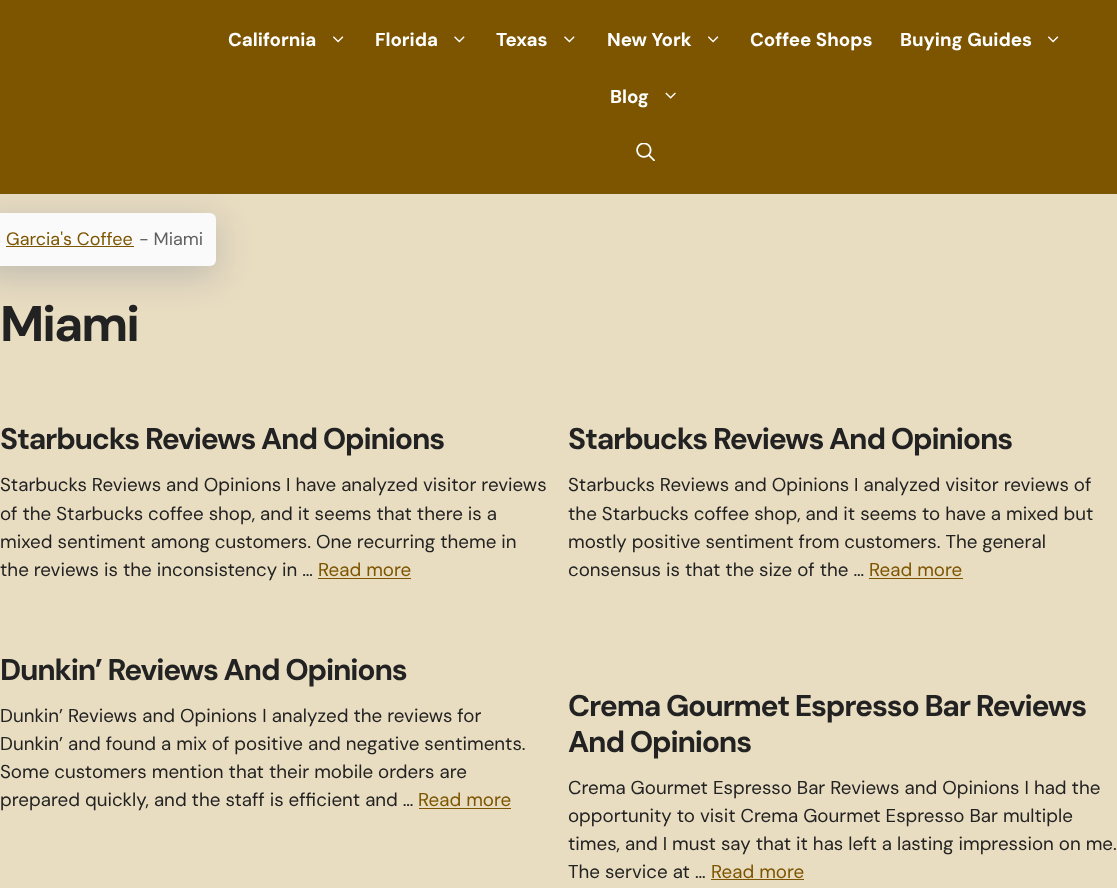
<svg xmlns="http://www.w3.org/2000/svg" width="1117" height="888">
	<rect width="100%" height="100%" fill="#E8DCC1" />
	<rect x="-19" y="221" width="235" height="54" rx="6" fill="#172B63" fill-opacity="0.2" filter="blur(17.5px)" />
	<rect x="0" y="0" width="1117" height="194" fill="#7D5500" />
	<text x="228" y="46" font-family="DM Sans" font-size="18.75" font-weight="700" fill="#FFFFFF">California</text>
	<image x="333" y="36" width="11" height="7" href="assets/img1.png" />
	<text x="375" y="46" font-family="DM Sans" font-size="18.75" font-weight="700" fill="#FFFFFF">Florida</text>
	<image x="454" y="36" width="11" height="7" href="assets/img2.png" />
	<text x="496" y="46" font-family="DM Sans" font-size="18.75" font-weight="700" fill="#FFFFFF">Texas</text>
	<image x="564" y="36" width="11" height="7" href="assets/img2.png" />
	<text x="607" y="46" font-family="DM Sans" font-size="18.75" font-weight="700" fill="#FFFFFF">New York</text>
	<image x="708" y="36" width="11" height="7" href="assets/img1.png" />
	<g font-family="DM Sans" font-size="18.75" font-weight="700" fill="#FFFFFF">
		<text x="750" y="46">Coffee Shops</text>
		<text x="900" y="46">Buying Guides</text>
	</g>
	<image x="1048" y="36" width="11" height="7" href="assets/img1.png" />
	<text x="610" y="103" font-family="DM Sans" font-size="18.75" font-weight="700" fill="#FFFFFF">Blog</text>
	<image x="665" y="92" width="11" height="7" href="assets/img3.png" />
	<image x="636" y="143" width="19" height="18" href="assets/img4.png" />
	<rect x="-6" y="213" width="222" height="53" rx="6" fill="#FAFAFA" />
	<text x="6" y="245" font-family="DM Sans" font-size="18" fill="#7D5500">Garcia's Coffee</text>
	<rect x="6" y="246" width="128" height="1" fill="#7D5500" />
	<text x="139" y="245" font-family="DM Sans" font-size="18" fill="#5F5F5F">- Miami</text>
	<text x="0" y="341" font-family="DM Sans" font-size="50" font-weight="700" letter-spacing="-2" fill="#222222">Miami</text>
	<text x="0" y="449" font-family="DM Sans" font-size="30" font-weight="700" letter-spacing="-1.2" fill="#222222">Starbucks Reviews And Opinions</text>
	<g font-family="DM Sans" font-size="18.75" fill="#222222">
		<text x="0" y="491">Starbucks Reviews and Opinions I have analyzed visitor reviews</text>
		<text x="0" y="520">of the Starbucks coffee shop, and it seems that there is a</text>
		<text x="0" y="548">mixed sentiment among customers. One recurring theme in</text>
		<text x="0" y="576">the reviews is the inconsistency in …</text>
	</g>
	<text x="318" y="576" font-family="DM Sans" font-size="18.75" fill="#7D5500">Read more</text>
	<rect x="318" y="578" width="93" height="1" fill="#7D5500" />
	<text x="568" y="449" font-family="DM Sans" font-size="30" font-weight="700" letter-spacing="-1.2" fill="#222222">Starbucks Reviews And Opinions</text>
	<g font-family="DM Sans" font-size="18.75" fill="#222222">
		<text x="568" y="491">Starbucks Reviews and Opinions I analyzed visitor reviews of</text>
		<text x="568" y="520">the Starbucks coffee shop, and it seems to have a mixed but</text>
		<text x="568" y="548">mostly positive sentiment from customers. The general</text>
		<text x="568" y="576">consensus is that the size of the …</text>
	</g>
	<text x="869" y="576" font-family="DM Sans" font-size="18.75" fill="#7D5500">Read more</text>
	<rect x="869" y="578" width="94" height="1" fill="#7D5500" />
	<text x="0" y="680" font-family="DM Sans" font-size="30" font-weight="700" letter-spacing="-1.2" fill="#222222">Dunkin’ Reviews And Opinions</text>
	<g font-family="DM Sans" font-size="18.75" fill="#222222">
		<text x="0" y="722">Dunkin’ Reviews and Opinions I analyzed the reviews for</text>
		<text x="0" y="750">Dunkin’ and found a mix of positive and negative sentiments.</text>
		<text x="0" y="778">Some customers mention that their mobile orders are</text>
		<text x="0" y="806">prepared quickly, and the staff is efficient and …</text>
	</g>
	<text x="418" y="806" font-family="DM Sans" font-size="18.75" fill="#7D5500">Read more</text>
	<rect x="419" y="808" width="92" height="1" fill="#7D5500" />
	<g font-family="DM Sans" font-size="30" font-weight="700" letter-spacing="-1.2" fill="#222222">
		<text x="568" y="716">Crema Gourmet Espresso Bar Reviews</text>
		<text x="568" y="752">And Opinions</text>
	</g>
	<g font-family="DM Sans" font-size="18.75" fill="#222222">
		<text x="568" y="794">Crema Gourmet Espresso Bar Reviews and Opinions I had the</text>
		<text x="568" y="822">opportunity to visit Crema Gourmet Espresso Bar multiple</text>
		<text x="568" y="850">times, and I must say that it has left a lasting impression on me.</text>
		<text x="568" y="878">The service at …</text>
	</g>
	<text x="711" y="878" font-family="DM Sans" font-size="18.75" fill="#7D5500">Read more</text>
	<rect x="711" y="879" width="93" height="1" fill="#7D5500" />
</svg>
